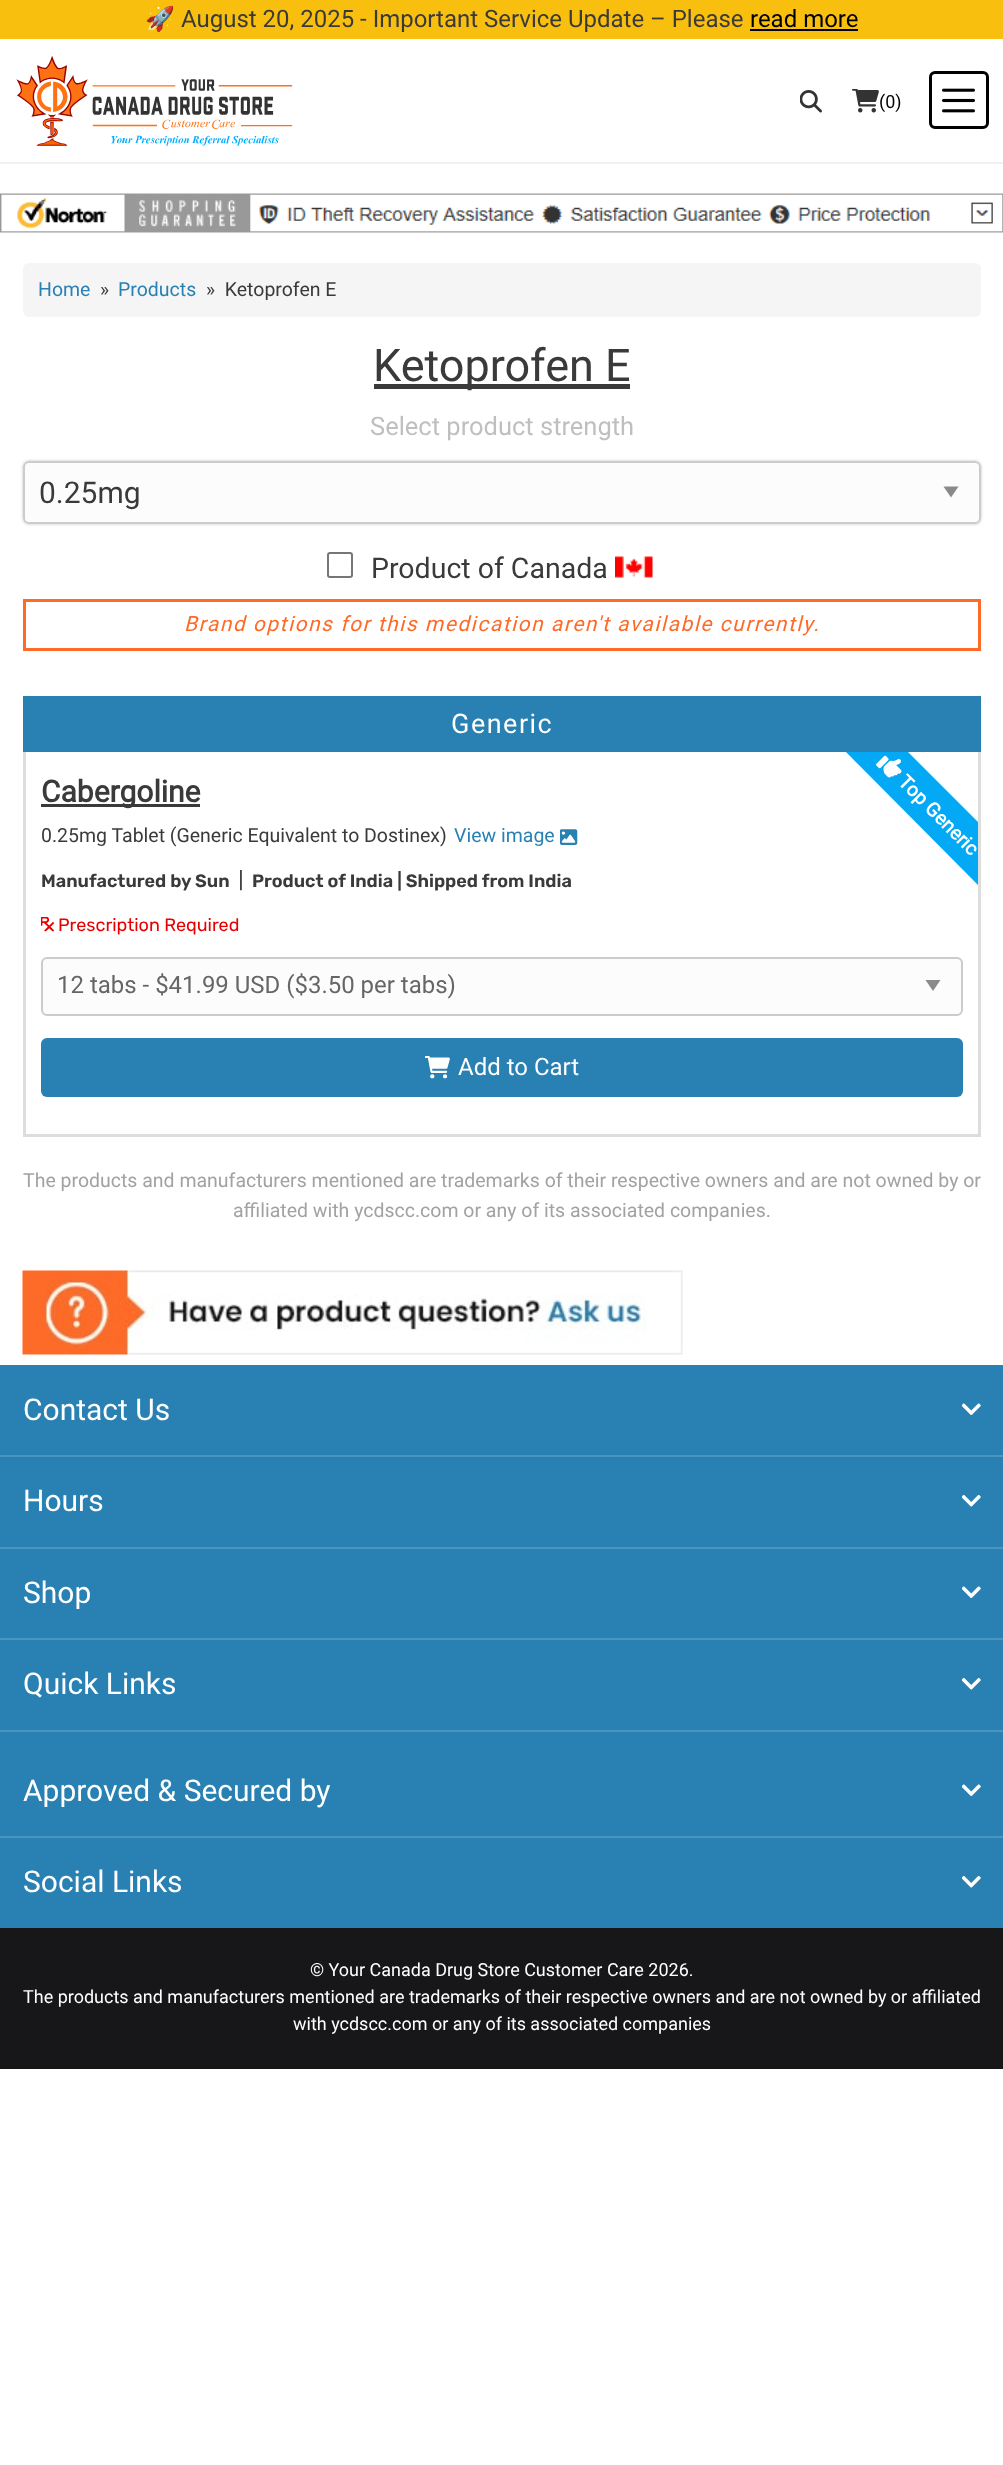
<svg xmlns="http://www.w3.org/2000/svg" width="1003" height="2465">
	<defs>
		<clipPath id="clip1"><rect x="828" y="752" width="150" height="150" /></clipPath>
	</defs>
	<rect width="100%" height="100%" fill="#FFFFFF" />
	<rect x="0" y="0" width="1003" height="39" fill="#F9BF0E" />
	<text x="145" y="27" font-family="Noto Color Emoji" font-size="24" fill="#3A3A3A">🚀</text>
	<text x="181" y="27" font-family="Roboto" font-size="24" fill="#3A3A3A">August 20, 2025 - Important Service Update – Please</text>
	<text x="750" y="27" font-family="Roboto" font-size="24" fill="#000000">read more</text>
	<rect x="750" y="29" width="108" height="2" fill="#000000" />
	<rect x="0" y="162" width="1003" height="2" fill="#F1F1F1" />
	<image x="16" y="56" width="277" height="90" href="assets/img1.png" />
	<image x="800" y="90" width="22" height="23" href="assets/img2.png" />
	<image x="852" y="89" width="27" height="24" href="assets/img3.png" />
	<text x="879" y="108" font-family="Roboto" font-size="18" fill="#000000">(0)</text>
	<rect x="930.5" y="72.5" width="57" height="55" rx="4.5" fill="none" stroke="#000000" stroke-width="3" />
	<image x="942" y="88" width="33" height="25" href="assets/img4.png" />
	<image x="0" y="193" width="1003" height="40" href="assets/img5.png" />
	<rect x="23" y="263" width="958" height="54" rx="6" fill="#F5F5F5" />
	<text x="38" y="296" font-family="Roboto" font-size="19.5" fill="#2980B2">Home</text>
	<text x="100" y="296" font-family="Roboto" font-size="19.5" fill="#3A3A3A">»</text>
	<text x="118" y="296" font-family="Roboto" font-size="19.5" fill="#2980B2">Products</text>
	<text x="206" y="296" font-family="Roboto" font-size="19.5" fill="#3A3A3A" xml:space="preserve">»  Ketoprofen E</text>
	<rect x="374" y="384" width="256" height="5" fill="#3A3A3A" />
	<text x="373" y="381" font-family="Roboto" font-size="45" fill="#3A3A3A">Ketoprofen E</text>
	<text x="370" y="435" font-family="Roboto" font-size="25.5" fill="#BFBFBF">Select product strength</text>
	<rect x="23" y="461" width="958" height="63" rx="6" fill="#C3C3C3" filter="blur(1.5px)" />
	<rect x="23" y="461" width="958" height="63" rx="6" fill="#FCFCFC" />
	<path d="M943.5 486.5H958.5L951 497.5Z" fill="#8A8A8A" />
	<rect x="24" y="462" width="956" height="61" rx="5" fill="none" stroke="#CCCCCC" stroke-width="2" />
	<text x="39" y="503" font-family="Roboto" font-size="30" fill="#3A3A3A">0.25mg</text>
	<rect x="328" y="553" width="24" height="24" rx="2" fill="none" stroke="#767676" stroke-width="2" />
	<text x="371" y="578" font-family="Roboto" font-size="28.5" fill="#3A3A3A">Product of Canada</text>
	<image x="615" y="556" width="38" height="22" href="assets/img6.png" />
	<rect x="24.5" y="600.5" width="955" height="49" fill="none" stroke="#FE6B28" stroke-width="3" />
	<text x="184" y="631" font-family="Roboto" font-size="21" font-style="italic" letter-spacing="1.5" fill="#FE6B28">Brand options for this medication aren't available currently.</text>
	<rect x="23" y="696" width="958" height="56" fill="#2980B2" />
	<text x="451" y="733" font-family="Roboto" font-size="27" letter-spacing="1.5" fill="#FFFFFF">Generic</text>
	<rect x="978" y="752" width="3" height="385" fill="#DDDDDD" />
	<rect x="23" y="1134" width="958" height="3" fill="#DDDDDD" />
	<rect x="23" y="752" width="3" height="385" fill="#DDDDDD" />
	<rect x="41" y="804" width="159" height="3" fill="#3A3A3A" />
	<text x="41" y="802" font-family="Roboto" font-size="30" font-weight="700" fill="#3A3A3A">Cabergoline</text>
	<text x="41" y="842" font-family="Roboto" font-size="19.5" fill="#3A3A3A">0.25mg Tablet (Generic Equivalent to Dostinex)</text>
	<text x="454" y="842" font-family="Roboto" font-size="19.5" fill="#2980B2">View image</text>
	<image x="560" y="829" width="18" height="16" href="assets/img7.png" />
	<text x="41" y="887" font-family="Rubik" font-size="18" font-weight="600" fill="#3A3A3A">Manufactured by Sun</text>
	<text x="238" y="887" font-family="Roboto" font-size="24" fill="#3A3A3A">|</text>
	<text x="252" y="887" font-family="Rubik" font-size="18" font-weight="600" fill="#3A3A3A">Product of India | Shipped from India</text>
	<image x="41" y="917" width="13" height="15" href="assets/img8.png" />
	<text x="58" y="931" font-family="Rubik" font-size="18" fill="#E80000">Prescription Required</text>
	<rect x="41" y="957" width="922" height="59" rx="6" fill="#FCFCFC" />
	<path d="M925.5 980H940.5L933 991Z" fill="#8A8A8A" />
	<rect x="42" y="958" width="920" height="57" rx="5" fill="none" stroke="#CCCCCC" stroke-width="2" />
	<text x="57" y="993" font-family="Roboto" font-size="24" fill="#666666">12 tabs - $41.99 USD ($3.50 per tabs)</text>
	<rect x="41" y="1038" width="922" height="59" rx="6" fill="#2980B2" />
	<image x="425" y="1056" width="25" height="23" href="assets/img9.png" />
	<text x="458" y="1075" font-family="Roboto" font-size="24" fill="#FFFFFF">Add to Cart</text>
	<g clip-path="url(#clip1)">
		<path d="M873 717L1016 860L985 892L842 748Z" fill="#03A9F4" />
	</g>
	<text x="897" y="783" transform="rotate(45 897 783)" font-family="Roboto" font-size="19.5" font-weight="700" fill="#FFFFFF">Top Generic</text>
	<image x="876" y="755" width="26" height="23" href="assets/img10.png" />
	<g font-family="Roboto" font-size="19.5" fill="#A3A1A1">
		<text x="23" y="1187">The products and manufacturers mentioned are trademarks of their respective owners and are not owned by or</text>
		<text x="233" y="1217">affiliated with ycdscc.com or any of its associated companies.</text>
	</g>
	<image x="22" y="1270" width="661" height="85" href="assets/img11.png" />
	<rect x="0" y="1365" width="1003" height="563" fill="#2980B2" />
	<rect x="0" y="1455" width="1003" height="2" fill="#4B94BE" />
	<text x="23" y="1420" font-family="Roboto" font-size="30" fill="#FFFFFF">Contact Us</text>
	<image x="962" y="1403" width="19" height="12" href="assets/img12.png" />
	<rect x="0" y="1638" width="1003" height="2" fill="#4B94BE" />
	<rect x="0" y="1547" width="1003" height="2" fill="#4B94BE" />
	<text x="23" y="1511" font-family="Roboto" font-size="30" fill="#FFFFFF">Hours</text>
	<image x="962" y="1495" width="19" height="12" href="assets/img13.png" />
	<text x="23" y="1603" font-family="Roboto" font-size="30" fill="#FFFFFF">Shop</text>
	<image x="962" y="1586" width="19" height="12" href="assets/img12.png" />
	<rect x="0" y="1730" width="1003" height="2" fill="#4B94BE" />
	<text x="23" y="1694" font-family="Roboto" font-size="30" fill="#FFFFFF">Quick Links</text>
	<image x="962" y="1678" width="19" height="12" href="assets/img13.png" />
	<rect x="0" y="1836" width="1003" height="2" fill="#4B94BE" />
	<text x="23" y="1801" font-family="Roboto" font-size="30" fill="#FFFFFF">Approved &amp; Secured by</text>
	<image x="962" y="1784" width="19" height="12" href="assets/img12.png" />
	<text x="23" y="1892" font-family="Roboto" font-size="30" fill="#FFFFFF">Social Links</text>
	<image x="962" y="1876" width="19" height="12" href="assets/img13.png" />
	<rect x="0" y="1928" width="1003" height="141" fill="#171719" />
	<g font-family="Roboto" font-size="18" fill="#FFFFFF">
		<text x="310" y="1976">© Your Canada Drug Store Customer Care 2026.</text>
		<text x="23" y="2003">The products and manufacturers mentioned are trademarks of their respective owners and are not owned by or affiliated</text>
		<text x="293" y="2030">with ycdscc.com or any of its associated companies</text>
	</g>
</svg>
